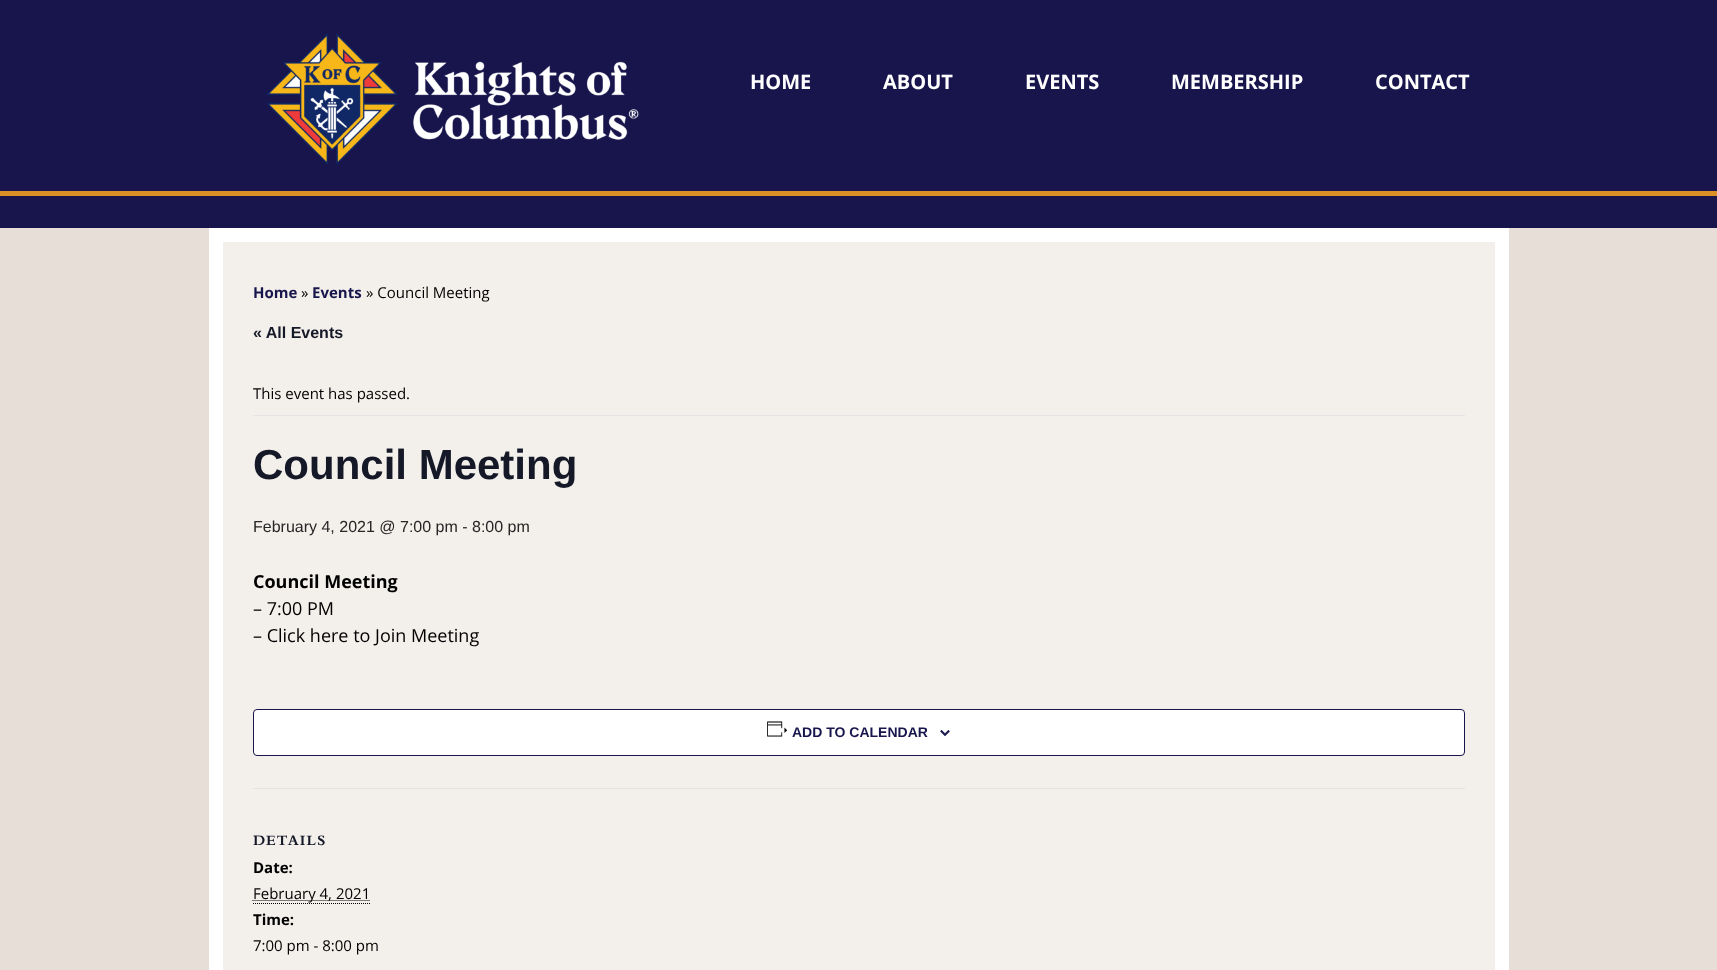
<svg xmlns="http://www.w3.org/2000/svg" width="1717" height="970">
	<rect width="100%" height="100%" fill="#E6DED7" />
	<rect x="0" y="0" width="1717" height="228" fill="#17154C" />
	<image x="266" y="33" width="373" height="132" href="assets/img1.png" />
	<g font-family="Open Sans" font-size="20" font-weight="700" fill="#FFFFFF">
		<text x="750" y="89">HOME</text>
		<text x="883" y="89">ABOUT</text>
		<text x="1025" y="89">EVENTS</text>
		<text x="1171" y="89">MEMBERSHIP</text>
		<text x="1375" y="89">CONTACT</text>
	</g>
	<rect x="0" y="191" width="1717" height="5" fill="#DA8F27" />
	<rect x="216" y="235" width="1286" height="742" fill="#F3EFEB" stroke="#FFFFFF" stroke-width="14" />
	<text x="253" y="298" font-family="Open Sans" font-size="15" font-weight="700" fill="#17154C">Home</text>
	<text x="301" y="298" font-family="Open Sans" font-size="15" fill="#000000">»</text>
	<text x="312" y="298" font-family="Open Sans" font-size="15" font-weight="700" fill="#17154C">Events</text>
	<text x="366" y="298" font-family="Open Sans" font-size="15" fill="#000000">» Council Meeting</text>
	<text x="253" y="338" font-family="Liberation Sans" font-size="16" font-weight="700" fill="#141827">« All Events</text>
	<rect x="253" y="415" width="1212" height="1" fill="#E4E4E4" />
	<text x="253" y="399" font-family="Open Sans" font-size="15" fill="#000000">This event has passed.</text>
	<text x="253" y="479" font-family="Liberation Sans" font-size="42" font-weight="700" fill="#141827">Council Meeting</text>
	<text x="253" y="532" font-family="Liberation Sans" font-size="16" fill="#262626">February 4, 2021 @ 7:00 pm - 8:00 pm</text>
	<text x="253" y="588" font-family="Open Sans" font-size="18" font-weight="700" fill="#000000">Council Meeting</text>
	<g font-family="Open Sans" font-size="18" fill="#000000">
		<text x="253" y="615">– 7:00 PM</text>
		<text x="253" y="642">– Click here to Join Meeting</text>
	</g>
	<rect x="253.5" y="709.5" width="1211" height="46" rx="3.5" fill="#FFFFFF" stroke="#17154C" />
	<image x="767" y="721" width="21" height="16" href="assets/img2.png" />
	<text x="792" y="737" font-family="Liberation Sans" font-size="14" font-weight="700" fill="#17154C">ADD TO CALENDAR</text>
	<image x="940" y="730" width="10" height="6" href="assets/img3.png" />
	<rect x="253" y="788" width="1212" height="1" fill="#E4E4E4" />
	<text x="253" y="845" font-family="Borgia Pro" font-size="14" font-weight="700" letter-spacing="1" fill="#141827">DETAILS</text>
	<text x="253" y="873" font-family="Open Sans" font-size="15" font-weight="700" fill="#000000">Date:</text>
	<path d="M252.5 900.5H369.5" fill="none" stroke="#000000" stroke-dasharray="1 1" />
	<text x="253" y="899" font-family="Open Sans" font-size="15" fill="#000000">February 4, 2021</text>
	<path d="M253 903.5H370" fill="none" stroke="#000000" stroke-dasharray="1 1" />
	<text x="253" y="925" font-family="Open Sans" font-size="15" font-weight="700" fill="#000000">Time:</text>
	<text x="253" y="951" font-family="Open Sans" font-size="15" fill="#000000">7:00 pm - 8:00 pm</text>
</svg>
